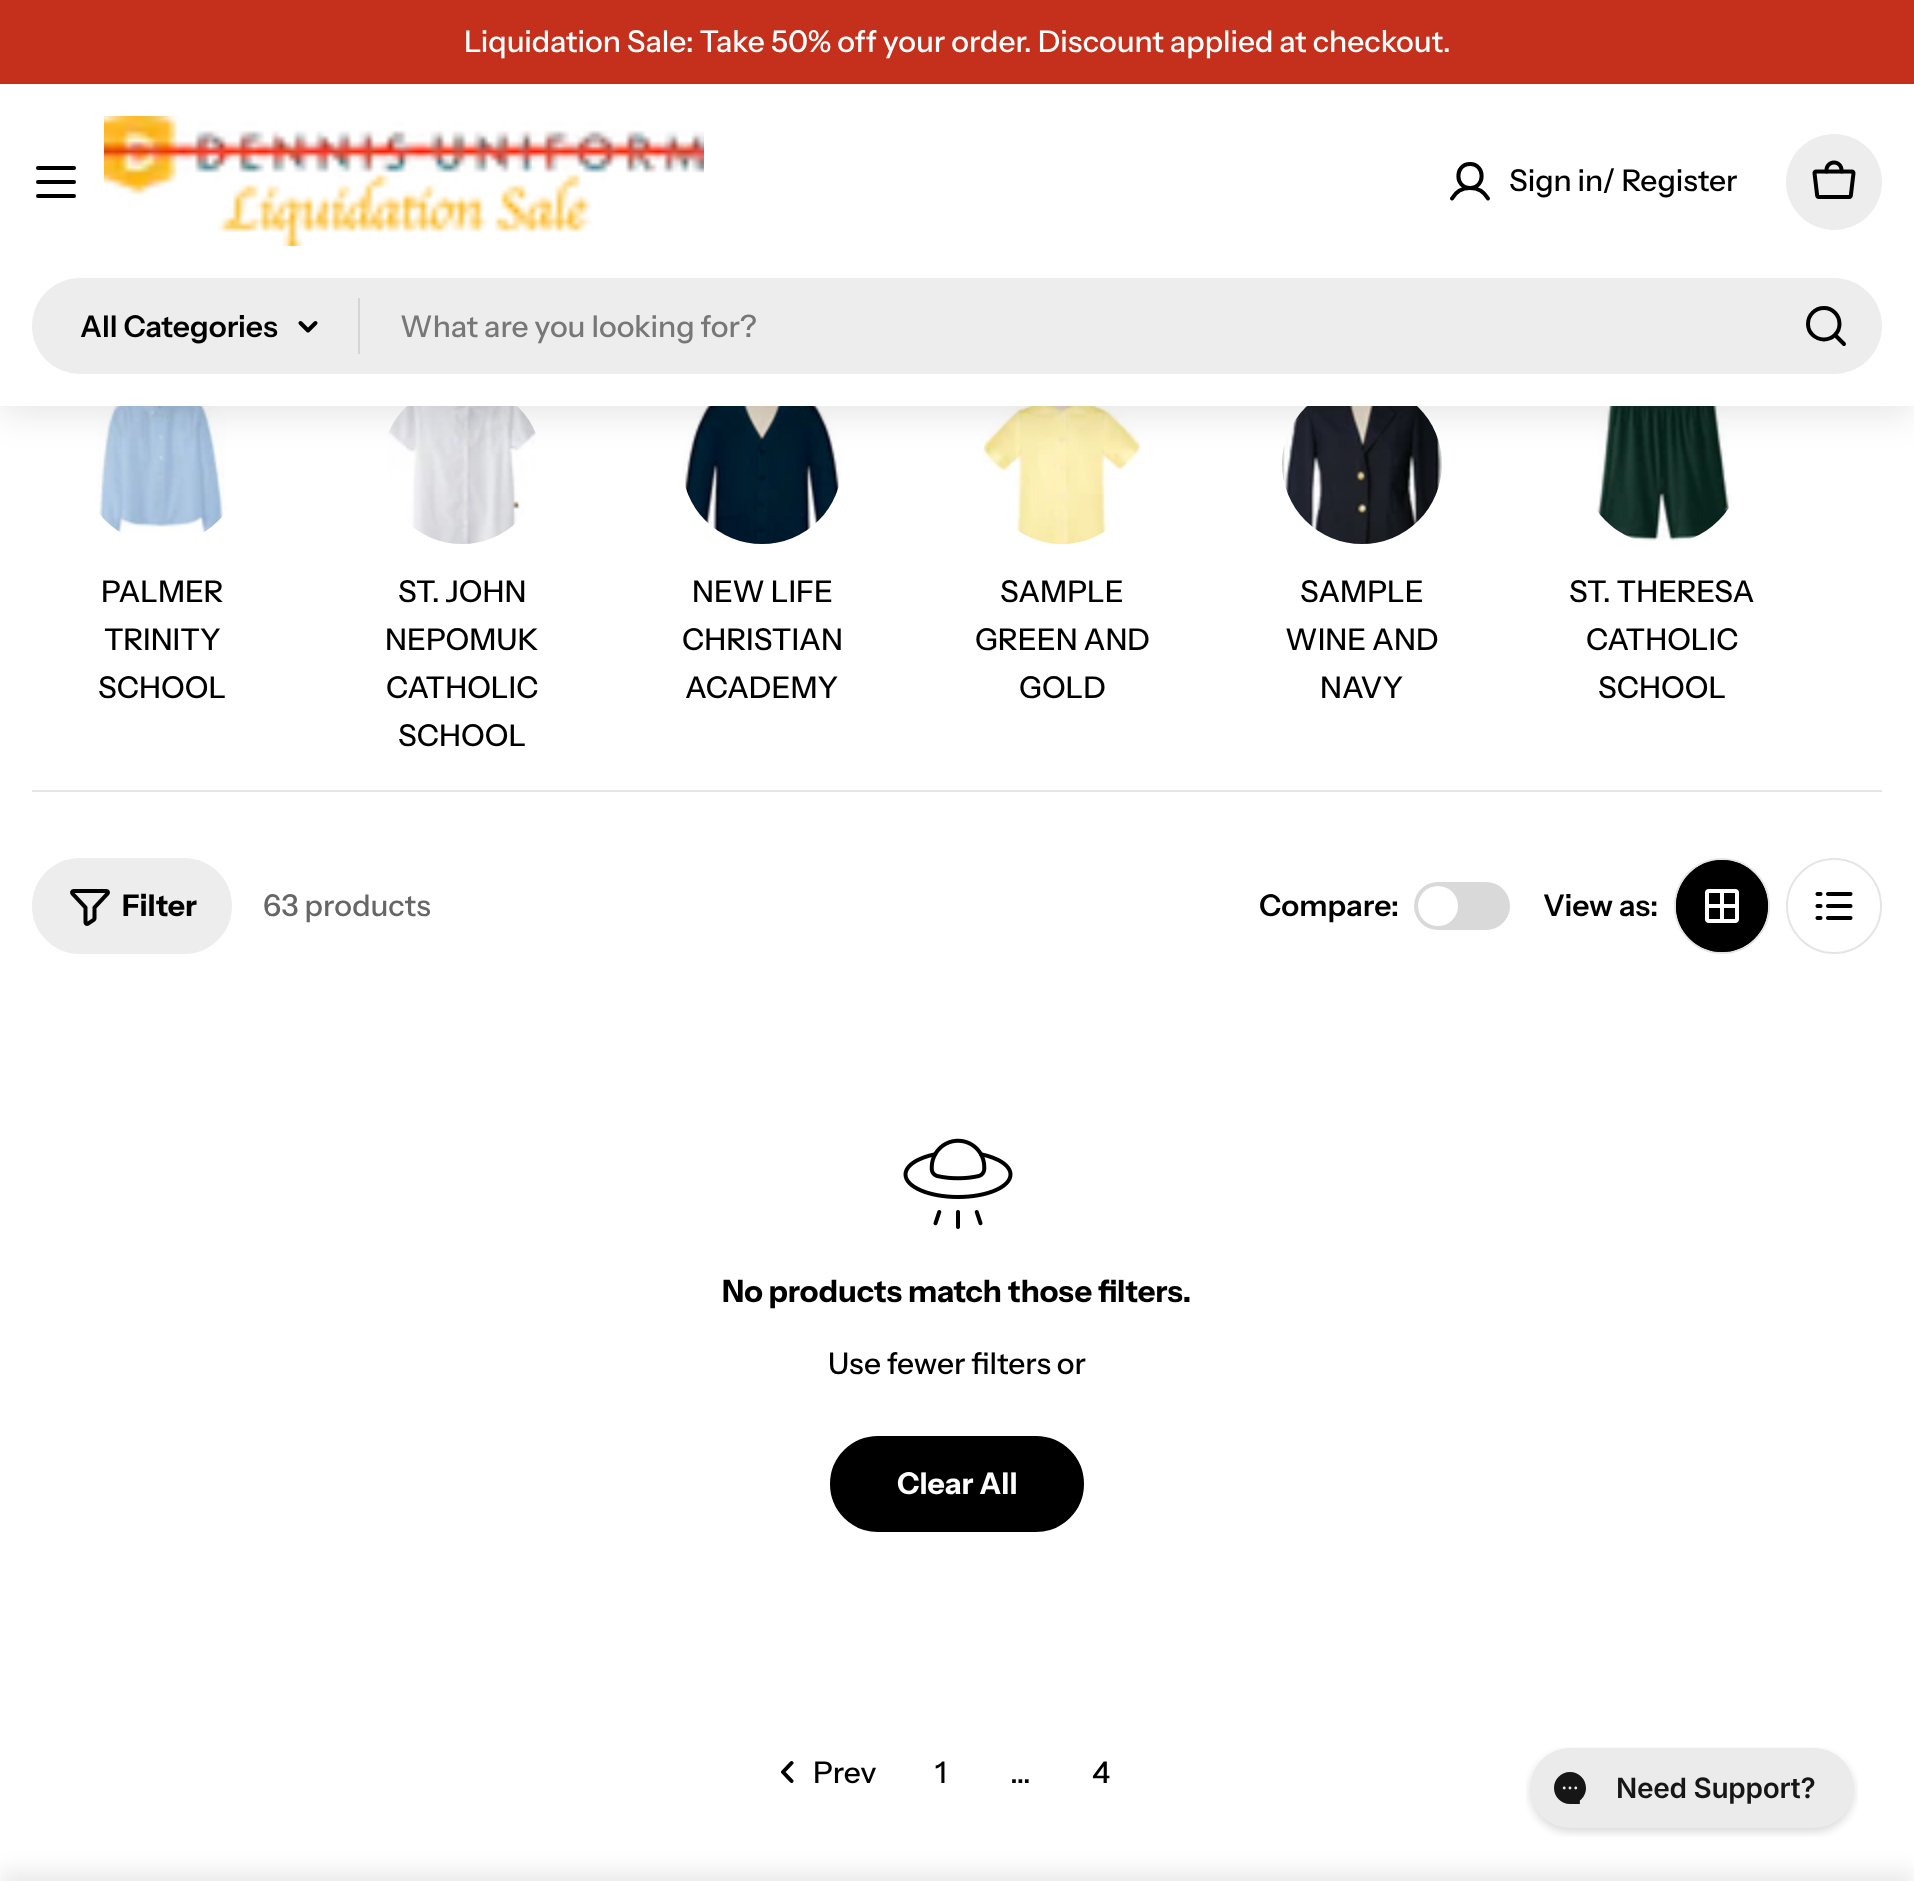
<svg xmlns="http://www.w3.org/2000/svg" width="1914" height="1881">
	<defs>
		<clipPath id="clip1"><rect x="1676" y="860" width="92" height="92" rx="46" /></clipPath>
	</defs>
	<rect width="100%" height="100%" fill="#FFFFFF" />
	<image x="98" y="406" width="128" height="127" href="assets/img3.png" />
	<image x="388" y="406" width="148" height="138" href="assets/img4.png" />
	<image x="682" y="406" width="160" height="138" href="assets/img5.png" />
	<image x="983" y="406" width="158" height="138" href="assets/img6.png" />
	<image x="1282" y="406" width="160" height="138" href="assets/img7.png" />
	<image x="1597" y="406" width="135" height="136" href="assets/img8.png" />
	<rect x="0" y="92" width="1914" height="322" fill="#000000" fill-opacity="0.1" filter="blur(18px)" />
	<rect x="0" y="0" width="1914" height="84" fill="#C4301C" />
	<text x="464" y="52" font-family="Instrument Sans" font-size="30" font-weight="500" fill="#FFFFFF">Liquidation Sale: Take 50% off your order. Discount applied at checkout.</text>
	<rect x="0" y="84" width="1914" height="322" fill="#FFFFFF" />
	<rect x="36" y="180" width="40" height="4" rx="2" fill="#000000" />
	<rect x="36" y="166" width="40" height="4" rx="2" fill="#000000" />
	<rect x="36" y="194" width="40" height="4" rx="2" fill="#000000" />
	<image x="104" y="116" width="600" height="130" href="assets/img1.png" />
	<path d="M1470 188C1485.5 188 1485.5 164 1470 164C1454.5 164 1454.5 188 1470 188ZM1452 198.5C1460 184.5 1480 184.5 1488 198.5" fill="none" stroke="#000000" stroke-width="4" stroke-linecap="round" stroke-linejoin="round" />
	<text x="1509" y="191" font-family="Instrument Sans" font-size="30" font-weight="500" fill="#000000">Sign in/ Register</text>
	<circle cx="1834" cy="182" r="48" fill="#EDEDED" />
	<image x="1812" y="160" width="44" height="39" href="assets/img2.png" />
	<rect x="32" y="278" width="1850" height="96" rx="48" fill="#EDEDED" />
	<text x="80" y="337" font-family="Instrument Sans" font-size="30" font-weight="600" fill="#000000">All Categories</text>
	<path d="M315.5 323L308 330.5L300.5 323" fill="none" stroke="#000000" stroke-width="4" stroke-linecap="round" stroke-linejoin="round" />
	<rect x="358" y="298" width="2" height="56" fill="#D5D5D5" />
	<text x="400" y="337" font-family="Instrument Sans" font-size="30" font-weight="500" fill="#777777">What are you looking for?</text>
	<path d="M1824 339.5C1832.5 339.5 1839.5 332.5 1839.5 324C1839.5 315 1832.5 308 1824 308C1815 308 1808 315 1808 324C1808 332.5 1815 339.5 1824 339.5ZM1835 335L1844 344" fill="none" stroke="#000000" stroke-width="4" stroke-linecap="round" stroke-linejoin="round" />
	<g font-family="Instrument Sans" font-size="30" font-weight="500" fill="#000000">
		<text x="101" y="602">PALMER</text>
		<text x="104" y="650">TRINITY</text>
		<text x="98" y="698">SCHOOL</text>
		<text x="398" y="602">ST. JOHN</text>
		<text x="385" y="650">NEPOMUK</text>
		<text x="386" y="698">CATHOLIC</text>
		<text x="398" y="746">SCHOOL</text>
		<text x="692" y="602">NEW LIFE</text>
		<text x="682" y="650">CHRISTIAN</text>
		<text x="685" y="698">ACADEMY</text>
		<text x="1000" y="602">SAMPLE</text>
		<text x="975" y="650">GREEN AND</text>
		<text x="1019" y="698">GOLD</text>
		<text x="1300" y="602">SAMPLE</text>
		<text x="1285" y="650">WINE AND</text>
		<text x="1320" y="698">NAVY</text>
		<text x="1569" y="602">ST. THERESA</text>
		<text x="1586" y="650">CATHOLIC</text>
		<text x="1598" y="698">SCHOOL</text>
	</g>
	<rect x="32" y="790" width="1850" height="2" fill="#E5E5E5" />
	<rect x="33" y="859" width="198" height="94" rx="47" fill="#EDEDED" stroke="#EDEDED" stroke-width="2" />
	<image x="70" y="889" width="40" height="37" href="assets/img9.png" />
	<text x="122" y="916" font-family="Instrument Sans" font-size="30" font-weight="700" fill="#000000">Filter</text>
	<text x="263" y="916" font-family="Instrument Sans" font-size="30" font-weight="500" fill="#666666">63 products</text>
	<text x="1259" y="916" font-family="Instrument Sans" font-size="30" font-weight="600" fill="#000000">Compare:</text>
	<rect x="1414" y="882" width="96" height="48" rx="24" fill="#D9D9D9" />
	<circle cx="1438" cy="906" r="20" fill="#FFFFFF" />
	<text x="1543" y="916" font-family="Instrument Sans" font-size="30" font-weight="600" fill="#000000">View as:</text>
	<circle cx="1722" cy="906" r="47" fill="#000000" stroke="#E5E5E5" stroke-width="2" />
	<g clip-path="url(#clip1)">
		<rect x="1674" y="858" width="94" height="96" rx="47" fill="#000000" />
	</g>
	<image x="1705" y="889" width="34" height="34" href="assets/img10.png" />
	<circle cx="1834" cy="906" r="47" fill="none" stroke="#E5E5E5" stroke-width="2" />
	<image x="1815" y="892" width="38" height="28" href="assets/img11.png" />
	<image x="903" y="1138" width="110" height="91" href="assets/img12.png" />
	<text x="722" y="1302" font-family="Instrument Sans" font-size="30.75" font-weight="700" fill="#000000">No products match those filters.</text>
	<text x="828" y="1374" font-family="Instrument Sans" font-size="30" font-weight="500" fill="#000000">Use fewer filters or</text>
	<rect x="831" y="1437" width="252" height="94" rx="47" fill="#000000" stroke="#000000" stroke-width="2" />
	<text x="897" y="1494" font-family="Instrument Sans" font-size="30" font-weight="700" fill="#FFFFFF">Clear All</text>
	<path d="M791.5 1781L783 1772L791.5 1763" fill="none" stroke="#000000" stroke-width="4" stroke-linecap="round" stroke-linejoin="round" />
	<g font-family="Instrument Sans" font-size="30" font-weight="500" fill="#000000">
		<text x="813" y="1783">Prev</text>
		<text x="935" y="1783">1</text>
		<text x="1010" y="1783">…</text>
		<text x="1092" y="1783">4</text>
	</g>
	<rect x="0" y="1870" width="1914" height="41" fill="#000000" fill-opacity="0.08" filter="blur(10px)" />
	<image x="1526" y="1747" width="332" height="90" href="assets/img13.png" />
</svg>
